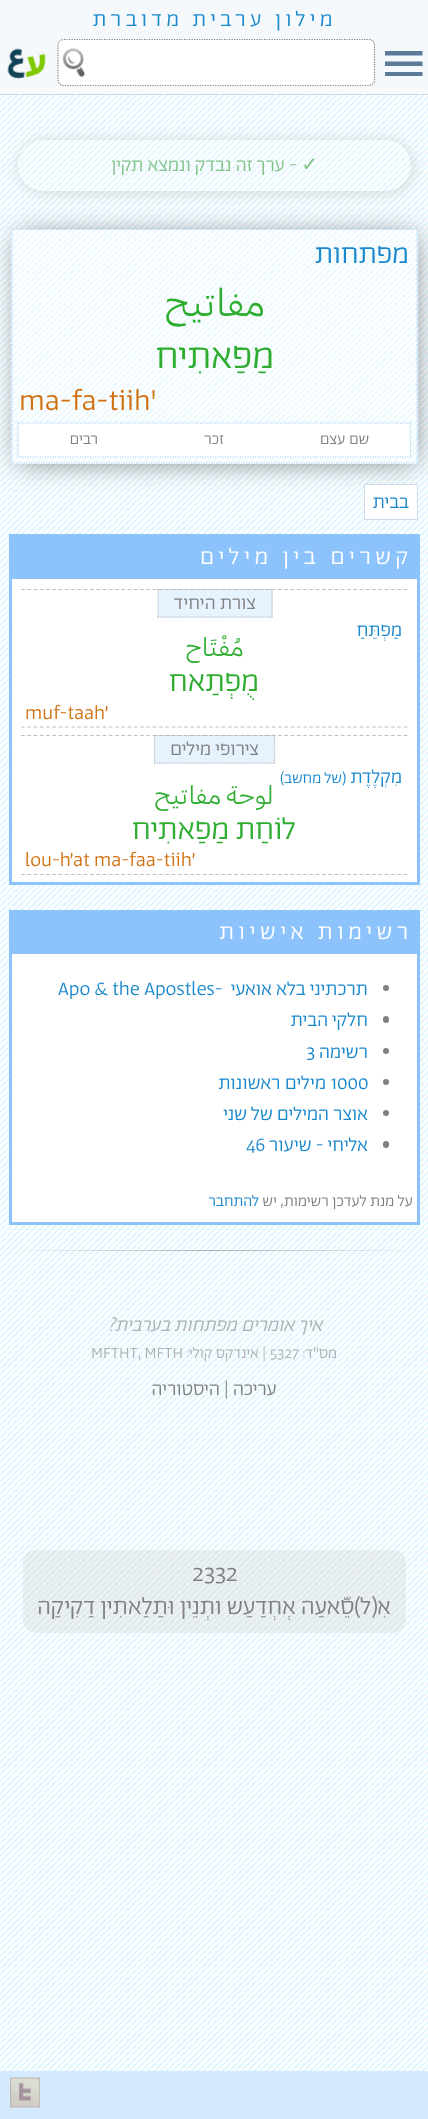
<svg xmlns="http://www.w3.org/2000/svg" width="428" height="2119">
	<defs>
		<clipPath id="clip1"><path d="M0 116H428V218H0ZM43.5 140H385.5C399.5 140 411 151.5 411 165.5C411 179.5 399.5 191 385.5 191H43.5C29.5 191 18 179.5 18 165.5C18 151.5 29.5 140 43.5 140Z" clip-rule="evenodd" /></clipPath>
		<clipPath id="clip2"><path d="M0 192H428V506H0ZM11 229H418V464H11Z" clip-rule="evenodd" /></clipPath>
		<linearGradient id="g1" gradientUnits="userSpaceOnUse" x1="0" y1="1251" x2="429" y2="1251"><stop offset="0" stop-color="#000000" stop-opacity="0" /><stop offset="0.5" stop-color="#000000" stop-opacity="0.3" /><stop offset="1" stop-color="#000000" stop-opacity="0" /></linearGradient>
	</defs>
	<rect width="100%" height="100%" fill="#FFFFFF" />
	<image x="0" y="95" width="428" height="1976" href="assets/img1.png" />
	<rect x="0" y="0" width="428" height="94" fill="#F6F9FC" />
	<text x="337" y="26" font-family="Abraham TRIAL" font-size="22.5" font-weight="300" letter-spacing="4.5" direction="rtl" fill="#1988CC">מילון ערבית מדוברת</text>
	<rect x="0" y="94" width="428" height="1" fill="#CDDBEA" />
	<path d="M385 51H422.5V55.5H385ZM385 66V61.5H422.5V66ZM385 76V72H422.5V76Z" fill="#5B7A99" />
	<rect x="58" y="39" width="317" height="47" rx="6" fill="#FFFFFF" />
	<image x="62" y="48" width="23" height="29" href="assets/img2.png" />
	<path d="M64 39.5H369C372 39.5 374.5 42 374.5 45V80C374.5 83 372 85.5 369 85.5H64C60.5 85.5 58 83 58 80V45C58 42 60.5 39.5 64 39.5Z" fill="none" stroke="#808080" stroke-width="1.2" stroke-dasharray="1.25 1.25" />
	<image x="7" y="48" width="39" height="31" href="assets/img3.png" />
	<g clip-path="url(#clip1)">
		<rect x="18" y="140" width="396" height="54" rx="27" fill="#999999" fill-opacity="0.3" filter="blur(7.5px)" />
	</g>
	<rect x="18" y="140" width="393" height="51" rx="25.5" fill="#FFFFFF" fill-opacity="0.14" />
	<text x="318" y="171" font-family="DejaVu Sans" font-size="20" direction="rtl" fill="#83C38A">✓</text>
	<text x="297" y="171" font-family="Abraham TRIAL" font-size="20" font-weight="300" direction="rtl" fill="#83C38A">- ערך זה נבדק ונמצא תקין</text>
	<g clip-path="url(#clip2)">
		<rect x="18" y="235" width="398" height="228" fill="#000000" fill-opacity="0.45" filter="blur(14px)" />
	</g>
	<rect x="11" y="229" width="407" height="235" fill="#FFFFFF" fill-opacity="0.38" />
	<path d="M11 229.5H417.5" fill="none" stroke="#A5D0F3" stroke-width="1.2" stroke-dasharray="1.25 1.25" />
	<path d="M417 229V464" fill="none" stroke="#A5D0F3" stroke-width="1.2" stroke-dasharray="1.25 1.25" />
	<path d="M11 463H417.5" fill="none" stroke="#A5D0F3" stroke-width="1.2" stroke-dasharray="1.25 1.25" />
	<path d="M12 229V464" fill="none" stroke="#A5D0F3" stroke-width="1.2" stroke-dasharray="1.25 1.25" />
	<text x="409" y="263" font-family="Abraham TRIAL" font-size="30" font-weight="300" direction="rtl" fill="#1988CC">מפתחות</text>
	<g font-family="Abraham TRIAL" font-size="39" font-weight="300" direction="rtl" fill="#2EAD31">
		<text x="264" y="316">مفاتيح</text>
		<text x="274" y="368">מַפַאתִיח</text>
	</g>
	<text x="19" y="410" font-family="Abraham TRIAL" font-size="30" font-weight="300" fill="#D17111">ma-fa-tiih'</text>
	<rect x="18" y="423" width="393" height="35" fill="#FFFFFF" />
	<path d="M17.5 423H411" fill="none" stroke="#A5D0F3" stroke-width="1.2" stroke-dasharray="1.25 1.25" />
	<path d="M410.5 422.5V457.5" fill="none" stroke="#A5D0F3" stroke-width="1.2" stroke-dasharray="1.25 1.25" />
	<path d="M17.5 457H411" fill="none" stroke="#A5D0F3" stroke-width="1.2" stroke-dasharray="1.25 1.25" />
	<path d="M18 422.5V457.5" fill="none" stroke="#A5D0F3" stroke-width="1.2" stroke-dasharray="1.25 1.25" />
	<g font-family="Abraham TRIAL" font-size="16.25" font-weight="300" direction="rtl" fill="#808080">
		<text x="369" y="444">שם עצם</text>
		<text x="224" y="444">זכר</text>
		<text x="98" y="444">רבים</text>
	</g>
	<rect x="364.5" y="484.5" width="53" height="35" fill="#FFFFFF" stroke="#CDDBEA" />
	<text x="409" y="508" font-family="Abraham TRIAL" font-size="20" font-weight="300" direction="rtl" fill="#1988CC">בבית</text>
	<rect x="12" y="579" width="405" height="303" fill="#FFFFFF" />
	<rect x="10.5" y="535.5" width="408" height="348" fill="none" stroke="#8CC3FD" stroke-width="3" />
	<rect x="12" y="537" width="405" height="42" fill="#8CC3FD" />
	<text x="413" y="564" font-family="Abraham TRIAL" font-size="24" font-weight="300" letter-spacing="4.75" direction="rtl" fill="#FFFFFF">קשרים בין מילים</text>
	<path d="M21 589.5H407.5" fill="none" stroke="#C0C0C0" stroke-width="1.2" stroke-dasharray="3.75 2.52" />
	<path d="M21 727H407.5" fill="none" stroke="#C0C0C0" stroke-width="1.2" stroke-dasharray="3.75 2.52" />
	<rect x="158" y="589" width="115" height="29" fill="#8CC3FD" fill-opacity="0.21" />
	<path d="M157.5 589.5H272.5" fill="none" stroke="#BBBBBB" stroke-width="1.2" stroke-dasharray="1.25 1.25" />
	<path d="M272 589V617.5" fill="none" stroke="#BBBBBB" stroke-width="1.2" stroke-dasharray="1.25 1.25" />
	<path d="M157.5 617H272.5" fill="none" stroke="#BBBBBB" stroke-width="1.2" stroke-dasharray="1.25 1.25" />
	<path d="M158 589V617.5" fill="none" stroke="#BBBBBB" stroke-width="1.2" stroke-dasharray="1.25 1.25" />
	<text x="256" y="609" font-family="Abraham TRIAL" font-size="20" font-weight="300" direction="rtl" fill="#808080">צורת היחיד</text>
	<text x="402" y="636" font-family="Abraham TRIAL" font-size="20" font-weight="300" direction="rtl" fill="#1988CC">מַפְתֵּחַ</text>
	<text x="243" y="656" font-family="Abraham TRIAL" font-size="26" font-weight="300" direction="rtl" fill="#2EAD31">مُفْتَاح</text>
	<text x="259" y="691" font-family="Abraham TRIAL" font-size="32" font-weight="300" direction="rtl" fill="#2EAD31">מֻפְתַאח</text>
	<text x="108" y="719" font-family="Abraham TRIAL" font-size="20" font-weight="300" direction="rtl" fill="#D17111">׳</text>
	<text x="25" y="719" font-family="Abraham TRIAL" font-size="20" font-weight="300" fill="#D17111">muf-taah</text>
	<path d="M21 735.5H407.5" fill="none" stroke="#C0C0C0" stroke-width="1.2" stroke-dasharray="3.75 2.52" />
	<path d="M21 874.5H407.5" fill="none" stroke="#C0C0C0" stroke-width="1.2" stroke-dasharray="3.75 2.52" />
	<rect x="154" y="735" width="121" height="29" fill="#8CC3FD" fill-opacity="0.21" />
	<path d="M154 735.5H275" fill="none" stroke="#BBBBBB" stroke-width="1.2" stroke-dasharray="1.25 1.25" />
	<path d="M274.5 735V764" fill="none" stroke="#BBBBBB" stroke-width="1.2" stroke-dasharray="1.25 1.25" />
	<path d="M154 763H275" fill="none" stroke="#BBBBBB" stroke-width="1.2" stroke-dasharray="1.25 1.25" />
	<path d="M154.5 735V764" fill="none" stroke="#BBBBBB" stroke-width="1.2" stroke-dasharray="1.25 1.25" />
	<text x="259" y="755" font-family="Abraham TRIAL" font-size="20" font-weight="300" direction="rtl" fill="#808080">צירופי מילים</text>
	<text x="402" y="783" font-family="Abraham TRIAL" font-size="20" font-weight="300" direction="rtl" fill="#1988CC">מִקְלֶדֶת</text>
	<text x="346" y="783" font-family="Abraham TRIAL" font-size="16.25" font-weight="300" direction="rtl" fill="#1988CC">(של מחשב)</text>
	<text x="274" y="804" font-family="Abraham TRIAL" font-size="26" font-weight="300" direction="rtl" fill="#2EAD31">لوحة مفاتيح</text>
	<text x="296" y="839" font-family="Abraham TRIAL" font-size="32" font-weight="300" direction="rtl" fill="#2EAD31">לוֹחַת מַפַאתִיח</text>
	<text x="195" y="866" font-family="Abraham TRIAL" font-size="20" font-weight="300" direction="rtl" fill="#D17111">׳</text>
	<text x="73" y="866" font-family="Abraham TRIAL" font-size="20" font-weight="300" fill="#D17111">at ma-faa-tiih</text>
	<text x="73" y="866" font-family="Abraham TRIAL" font-size="20" font-weight="300" direction="rtl" fill="#D17111">׳</text>
	<text x="25" y="866" font-family="Abraham TRIAL" font-size="20" font-weight="300" fill="#D17111">lou-h</text>
	<rect x="12" y="954" width="405" height="268" fill="#FFFFFF" />
	<rect x="10.5" y="911.5" width="408" height="312" fill="none" stroke="#8CC3FD" stroke-width="3" />
	<rect x="12" y="913" width="405" height="41" fill="#8CC3FD" />
	<text x="413" y="939" font-family="Abraham TRIAL" font-size="24" font-weight="300" letter-spacing="4.75" direction="rtl" fill="#FFFFFF">רשימות אישיות</text>
	<circle cx="386" cy="988" r="3" fill="#808080" />
	<text x="368" y="995" font-family="Abraham TRIAL" font-size="20" font-weight="300" direction="rtl" fill="#1988CC">תרכתיני בלא אואעי</text>
	<text x="58" y="995" font-family="Abraham TRIAL" font-size="20" font-weight="300" fill="#1988CC">Apo &amp; the Apostles-</text>
	<rect x="383" y="1016" width="6" height="7" rx="3" fill="#808080" />
	<text x="368" y="1026" font-family="Abraham TRIAL" font-size="20" font-weight="300" direction="rtl" fill="#1988CC">חלקי הבית</text>
	<circle cx="386" cy="1051" r="3" fill="#808080" />
	<text x="368" y="1058" font-family="Abraham TRIAL" font-size="20" font-weight="300" direction="rtl" fill="#1988CC">רשימה</text>
	<text x="306" y="1058" font-family="Abraham TRIAL" font-size="20" font-weight="300" fill="#1988CC">3</text>
	<circle cx="386" cy="1082" r="3" fill="#808080" />
	<text x="331" y="1089" font-family="Abraham TRIAL" font-size="20" font-weight="300" fill="#1988CC">1000</text>
	<text x="326" y="1089" font-family="Abraham TRIAL" font-size="20" font-weight="300" direction="rtl" fill="#1988CC">מילים ראשונות</text>
	<circle cx="386" cy="1113" r="3" fill="#808080" />
	<text x="368" y="1120" font-family="Abraham TRIAL" font-size="20" font-weight="300" direction="rtl" fill="#1988CC">אוצר המילים של שני</text>
	<rect x="383" y="1141" width="6" height="7" rx="3" fill="#808080" />
	<text x="368" y="1151" font-family="Abraham TRIAL" font-size="20" font-weight="300" direction="rtl" fill="#1988CC">אליחי - שיעור</text>
	<text x="246" y="1151" font-family="Abraham TRIAL" font-size="20" font-weight="300" fill="#1988CC">46</text>
	<text x="413" y="1206" font-family="Abraham TRIAL" font-size="16.25" font-weight="300" direction="rtl" fill="#808080">על מנת לעדכן רשימות, יש</text>
	<text x="259" y="1206" font-family="Abraham TRIAL" font-size="16.25" font-weight="300" direction="rtl" fill="#1988CC">להתחבר</text>
	<rect x="15" y="1250" width="399" height="1" fill="url(#g1)" />
	<text x="322" y="1331" font-family="Abraham TRIAL" font-size="20" font-weight="300" font-style="italic" direction="rtl" fill="#ADB1B3">איך אומרים מפתחות בערבית?</text>
	<text x="337" y="1358" font-family="Abraham TRIAL" font-size="16.25" font-weight="300" direction="rtl" fill="#ADB1B3">מס"ד:</text>
	<text x="270" y="1358" font-family="Abraham TRIAL" font-size="16.25" font-weight="300" fill="#ADB1B3">5327</text>
	<text x="266" y="1358" font-family="Abraham TRIAL" font-size="16.25" font-weight="300" direction="rtl" fill="#ADB1B3">| אינדקס קולי:</text>
	<text x="91" y="1358" font-family="Abraham TRIAL" font-size="16.25" font-weight="300" fill="#ADB1B3">MFTHT, MFTH</text>
	<text x="277" y="1395" font-family="Abraham TRIAL" font-size="20" font-weight="300" direction="rtl" fill="#808080">עריכה</text>
	<text x="224" y="1395" font-family="Abraham TRIAL" font-size="20" font-weight="300" fill="#808080">|</text>
	<text x="220" y="1395" font-family="Abraham TRIAL" font-size="20" font-weight="300" direction="rtl" fill="#808080">היסטוריה</text>
	<rect x="23" y="1550" width="383" height="83" rx="13" fill="#CCCCCC" fill-opacity="0.27" />
	<text x="192" y="1581" font-family="Abraham TRIAL" font-size="25" font-weight="300" fill="#808080">2332</text>
	<text x="391" y="1614" font-family="Abraham TRIAL" font-size="25" font-weight="300" direction="rtl" fill="#808080">אִ(ל)סֵّאעַה אְחְדַעַש ותְנֵין וּתַלַאתִין דַקִיקַה</text>
	<rect x="0" y="2071" width="428" height="48" fill="#D4EAFF" />
	<image x="10" y="2077" width="30" height="31" href="assets/img4.png" />
</svg>
